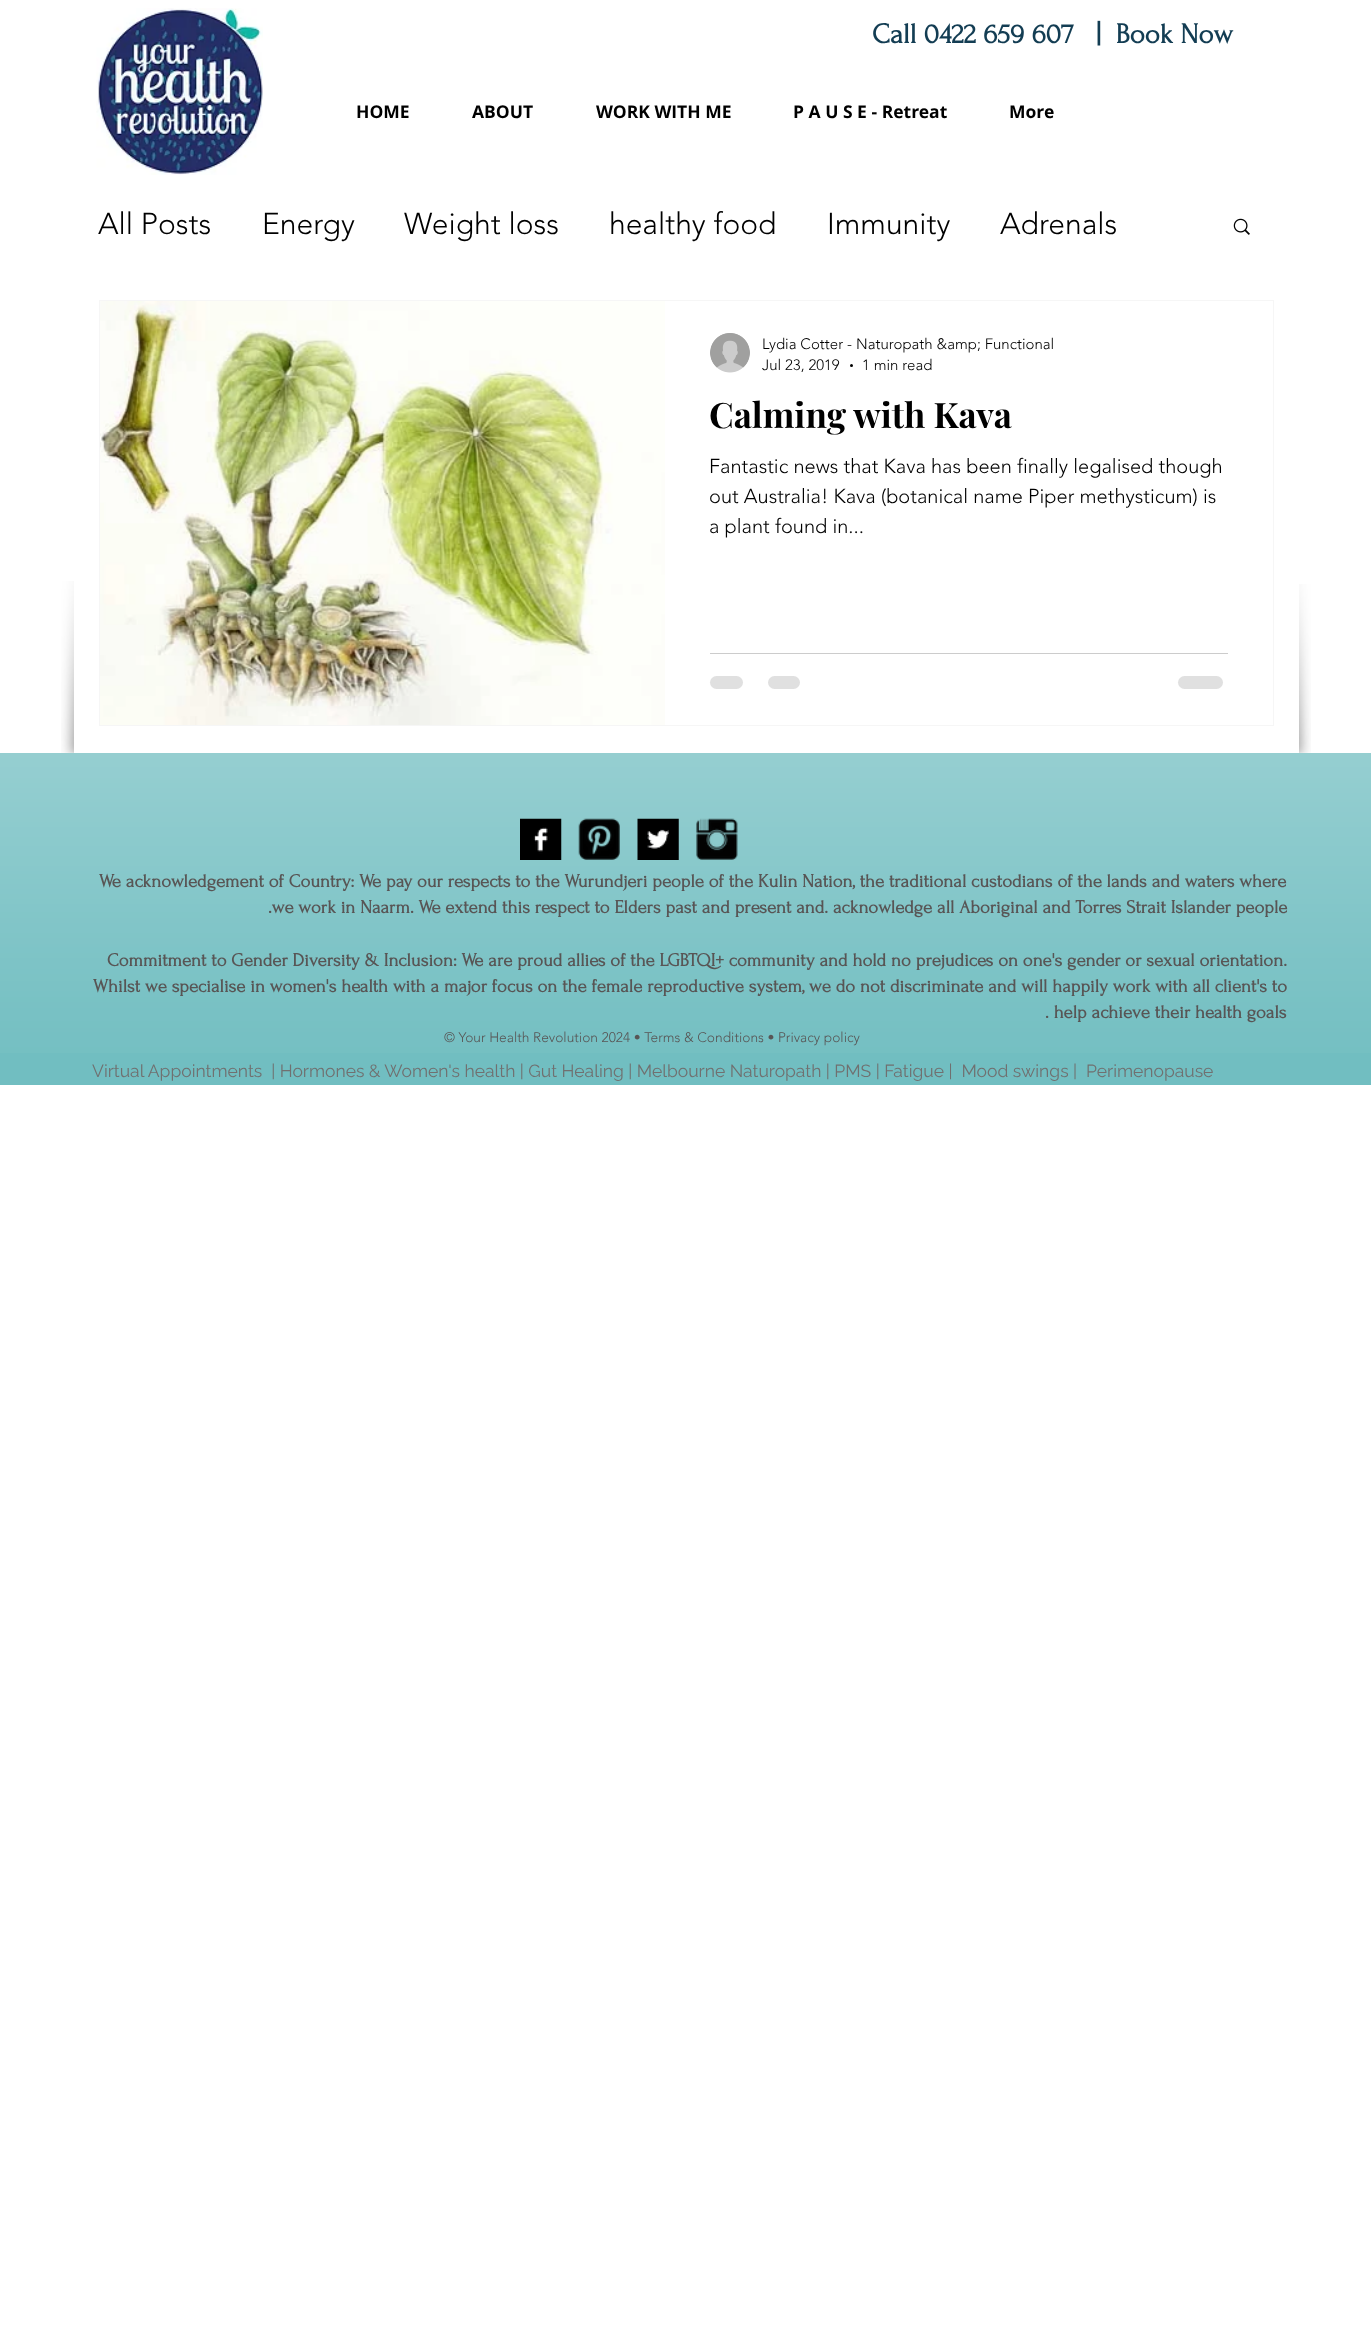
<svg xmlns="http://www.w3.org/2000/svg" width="1371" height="2328">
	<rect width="100%" height="100%" fill="#FFFFFF" />
	<image x="96" y="8" width="167" height="167" href="assets/img1.png" />
	<text x="872" y="43" font-family="Forum" font-size="28.75" font-weight="700" fill="#133D53" xml:space="preserve">Call 0422 659 607   |  Book Now</text>
	<g font-family="Open Sans" font-size="17.5" font-weight="700" fill="#000000">
		<text x="356" y="118">HOME</text>
		<text x="472" y="118">ABOUT</text>
		<text x="596" y="118">WORK WITH ME</text>
		<text x="793" y="118">P A U S E - Retreat</text>
		<text x="1009" y="118">More</text>
	</g>
	<g font-family="'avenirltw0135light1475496'" font-size="30" font-weight="300" fill="#000000">
		<text x="98" y="234">All Posts</text>
		<text x="262" y="234">Energy</text>
		<text x="404" y="234">Weight loss</text>
		<text x="609" y="234">healthy food</text>
		<text x="827" y="234">Immunity</text>
		<text x="1000" y="234">Adrenals</text>
	</g>
	<image x="1233" y="218" width="17" height="17" href="assets/img2.png" />
	<rect x="99.5" y="300.5" width="1174" height="425" fill="none" stroke="#F6F6F6" />
	<image x="100" y="301" width="565" height="424" href="assets/img3.png" />
	<image x="710" y="333" width="40" height="40" href="assets/img4.png" />
	<g font-family="'avenirltw0135light1475496'" font-size="15" font-weight="300" fill="#000000">
		<text x="762" y="349">Lydia Cotter - Naturopath &amp;amp; Functional</text>
		<text x="762" y="370">Jul 23, 2019</text>
	</g>
	<circle cx="851.5" cy="365.5" r="1.5" fill="#000000" />
	<text x="862" y="370" font-family="'avenirltw0135light1475496'" font-size="15" font-weight="300" fill="#000000">1 min read</text>
	<text x="709" y="428" font-family="Playfair Display" font-size="35" font-weight="700" fill="#000000">Calming with Kava</text>
	<g font-family="'avenirltw0135light1475496'" font-size="20" font-weight="300" fill="#000000">
		<text x="709" y="473">Fantastic news that Kava has been finally legalised though</text>
		<text x="709" y="503">out Australia! Kava (botanical name Piper methysticum) is</text>
		<text x="709" y="533">a plant found in...</text>
	</g>
	<rect x="710" y="653" width="518" height="1" fill="#CCCCCC" />
	<rect x="710" y="676" width="33" height="13" rx="6.5" fill="#E0E0E0" />
	<rect x="768" y="676" width="32" height="13" rx="6.5" fill="#E0E0E0" />
	<rect x="1178" y="676" width="45" height="13" rx="6.5" fill="#E0E0E0" />
	<image x="61" y="581" width="13" height="172" href="assets/img5.png" />
	<image x="1299" y="584" width="12" height="169" href="assets/img6.png" />
	<rect x="0" y="753" width="1371" height="332" fill="#71BEC1" />
	<image x="0" y="752" width="1371" height="301" href="assets/img7.png" />
	<image x="520" y="818" width="42" height="42" href="assets/img8.png" />
	<image x="578" y="818" width="42" height="42" href="assets/img9.png" />
	<image x="637" y="818" width="42" height="42" href="assets/img10.png" />
	<image x="696" y="818" width="42" height="42" href="assets/img11.png" />
	<g font-family="Forum" font-size="18.75" font-weight="700" fill="#585555">
		<text x="99" y="887">We acknowledgement of Country: We pay our respects to the Wurundjeri people of the Kulin Nation, the traditional custodians of the lands and waters where</text>
		<text x="268" y="913">.we work in Naarm. We extend this respect to Elders past and present and. acknowledge all Aboriginal and Torres Strait Islander people</text>
		<text x="107" y="966">Commitment to Gender Diversity &amp; Inclusion: We are proud allies of the LGBTQI+ community and hold no prejudices on one's gender or sexual orientation.</text>
		<text x="93" y="992">Whilst we specialise in women's health with a major focus on the female reproductive system, we do not discriminate and will happily work with all client's to</text>
		<text x="1045" y="1018">. help achieve their health goals</text>
	</g>
	<text x="444" y="1042" font-family="'avenirltw0135light1475496'" font-size="13.75" font-weight="300" fill="#585555">© Your Health Revolution 2024 • Terms &amp; Conditions • Privacy policy</text>
	<text x="92" y="1077" font-family="Raleway" font-size="17.5" fill="#707070" xml:space="preserve">Virtual Appointments  | Hormones &amp; Women's health | Gut Healing | Melbourne Naturopath | PMS | Fatigue |  Mood swings |  Perimenopause</text>
</svg>
